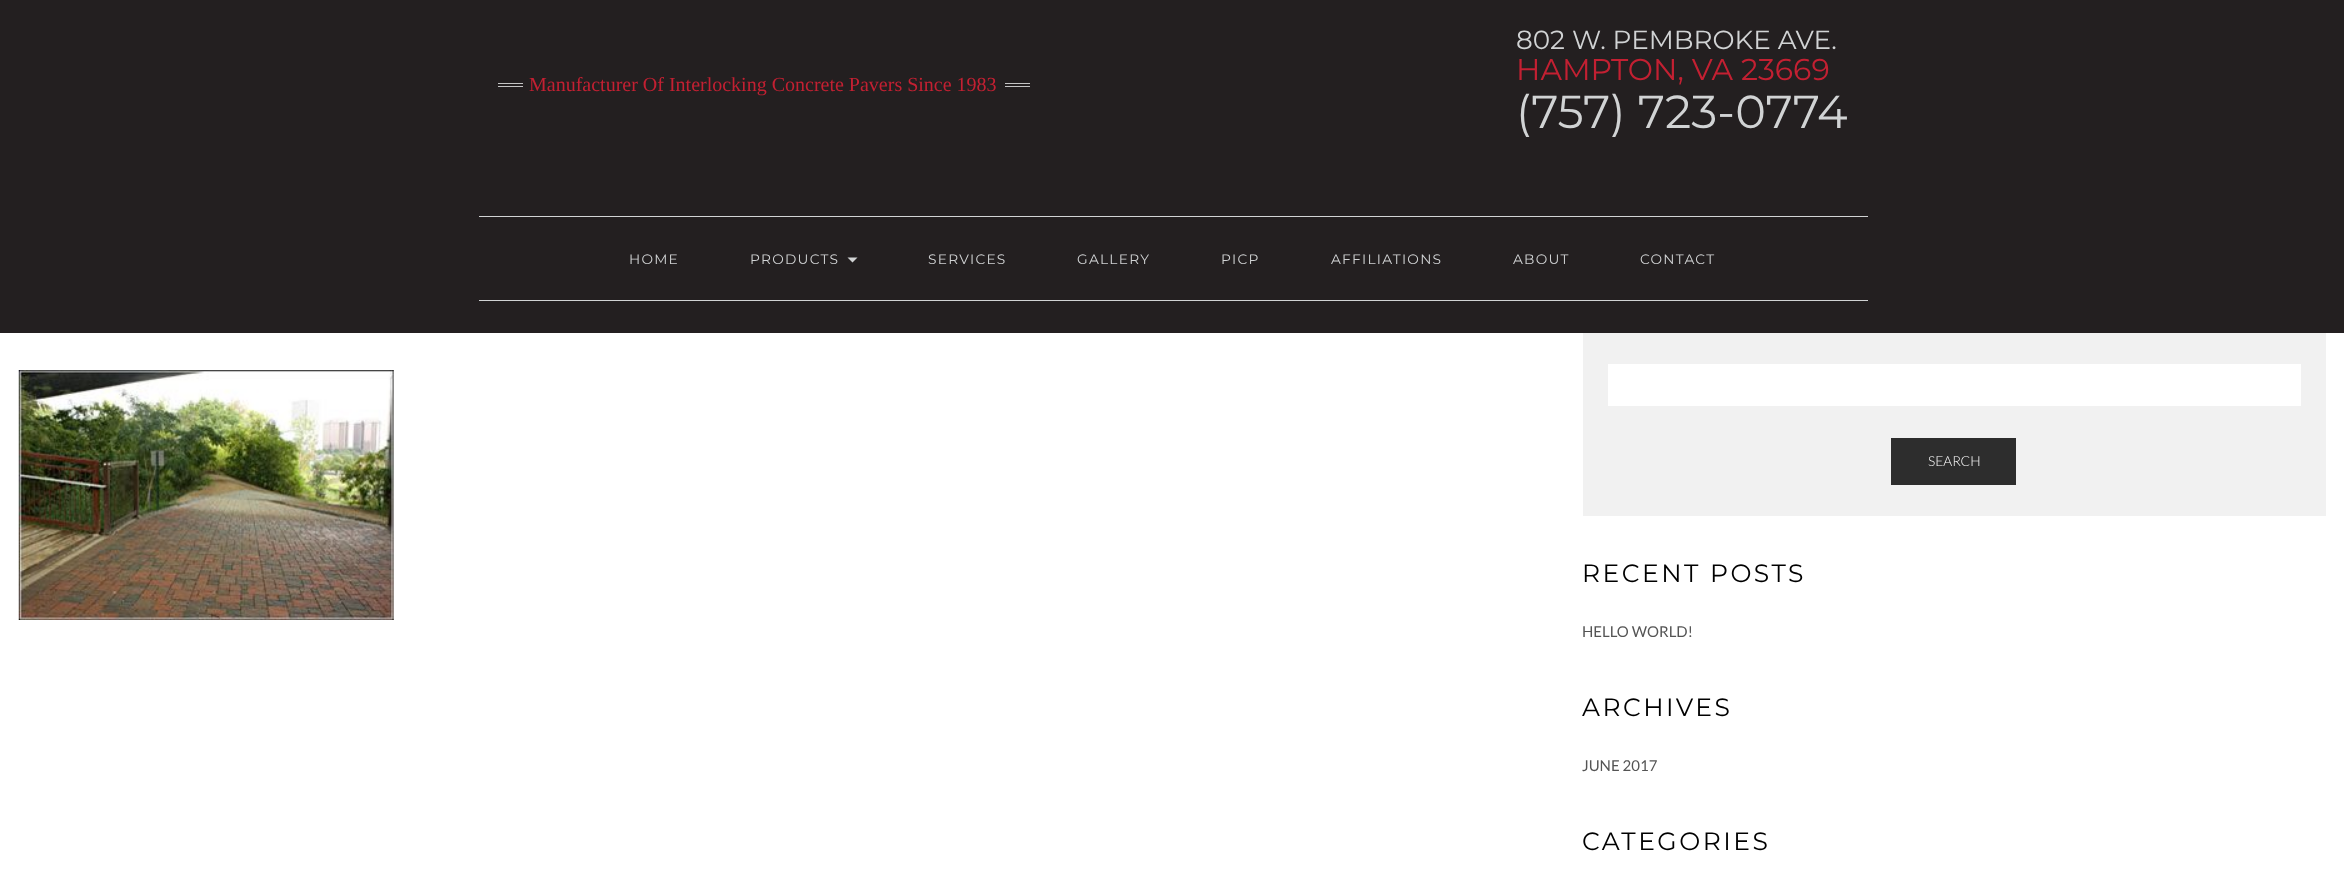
<svg xmlns="http://www.w3.org/2000/svg" width="2344" height="869">
	<rect width="100%" height="100%" fill="#FFFFFF" />
	<rect x="0" y="0" width="2344" height="333" fill="#231F20" />
	<rect x="498" y="83" width="25" height="1" fill="#C4C4C4" />
	<rect x="498" y="86" width="25" height="1" fill="#C4C4C4" />
	<text x="529" y="91" font-family="Liberation Serif" font-size="20" fill="#C32032">Manufacturer Of Interlocking Concrete Pavers Since 1983</text>
	<rect x="1005" y="83" width="25" height="1" fill="#C4C4C4" />
	<rect x="1005" y="86" width="25" height="1" fill="#C4C4C4" />
	<text x="1516" y="49" font-family="Montserrat" font-size="26.25" fill="#D1D3D4">802 W. PEMBROKE AVE.</text>
	<text x="1516" y="80" font-family="Montserrat" font-size="30" fill="#C32032">HAMPTON, VA 23669</text>
	<text x="1516" y="128" font-family="Montserrat" font-size="46.25" fill="#D1D3D4">(757) 723-0774</text>
	<rect x="479" y="216" width="1389" height="1" fill="#D1D3D4" />
	<rect x="479" y="300" width="1389" height="1" fill="#D1D3D4" />
	<g font-family="Montserrat" font-size="13.75" letter-spacing="1.25" fill="#D1D3D4">
		<text x="629" y="264">HOME</text>
		<text x="750" y="264">PRODUCTS</text>
	</g>
	<path d="M847.5 257.5H857.5L852.5 262.5Z" fill="#D1D3D4" />
	<g font-family="Montserrat" font-size="13.75" letter-spacing="1.25" fill="#D1D3D4">
		<text x="928" y="264">SERVICES</text>
		<text x="1077" y="264">GALLERY</text>
		<text x="1221" y="264">PICP</text>
		<text x="1331" y="264">AFFILIATIONS</text>
		<text x="1513" y="264">ABOUT</text>
		<text x="1640" y="264">CONTACT</text>
	</g>
	<image x="18" y="370" width="376" height="250" href="assets/img1.png" />
	<rect x="1583" y="333" width="743" height="183" fill="#F1F1F1" />
	<rect x="1608" y="364" width="693" height="42" fill="#FFFFFF" />
	<rect x="1891" y="438" width="125" height="47" fill="#2D2D2D" />
	<text x="1928" y="466" font-family="Lato" font-size="13.75" font-weight="300" fill="#FFFFFF">SEARCH</text>
	<text x="1582" y="582" font-family="Montserrat" font-size="25" letter-spacing="2.5" fill="#000000">RECENT POSTS</text>
	<text x="1582" y="637" font-family="Lato" font-size="15" fill="#545454">HELLO WORLD!</text>
	<text x="1582" y="716" font-family="Montserrat" font-size="25" letter-spacing="2.5" fill="#000000">ARCHIVES</text>
	<text x="1582" y="771" font-family="Lato" font-size="15" fill="#545454">JUNE 2017</text>
	<text x="1582" y="850" font-family="Montserrat" font-size="25" letter-spacing="2.5" fill="#000000">CATEGORIES</text>
</svg>
